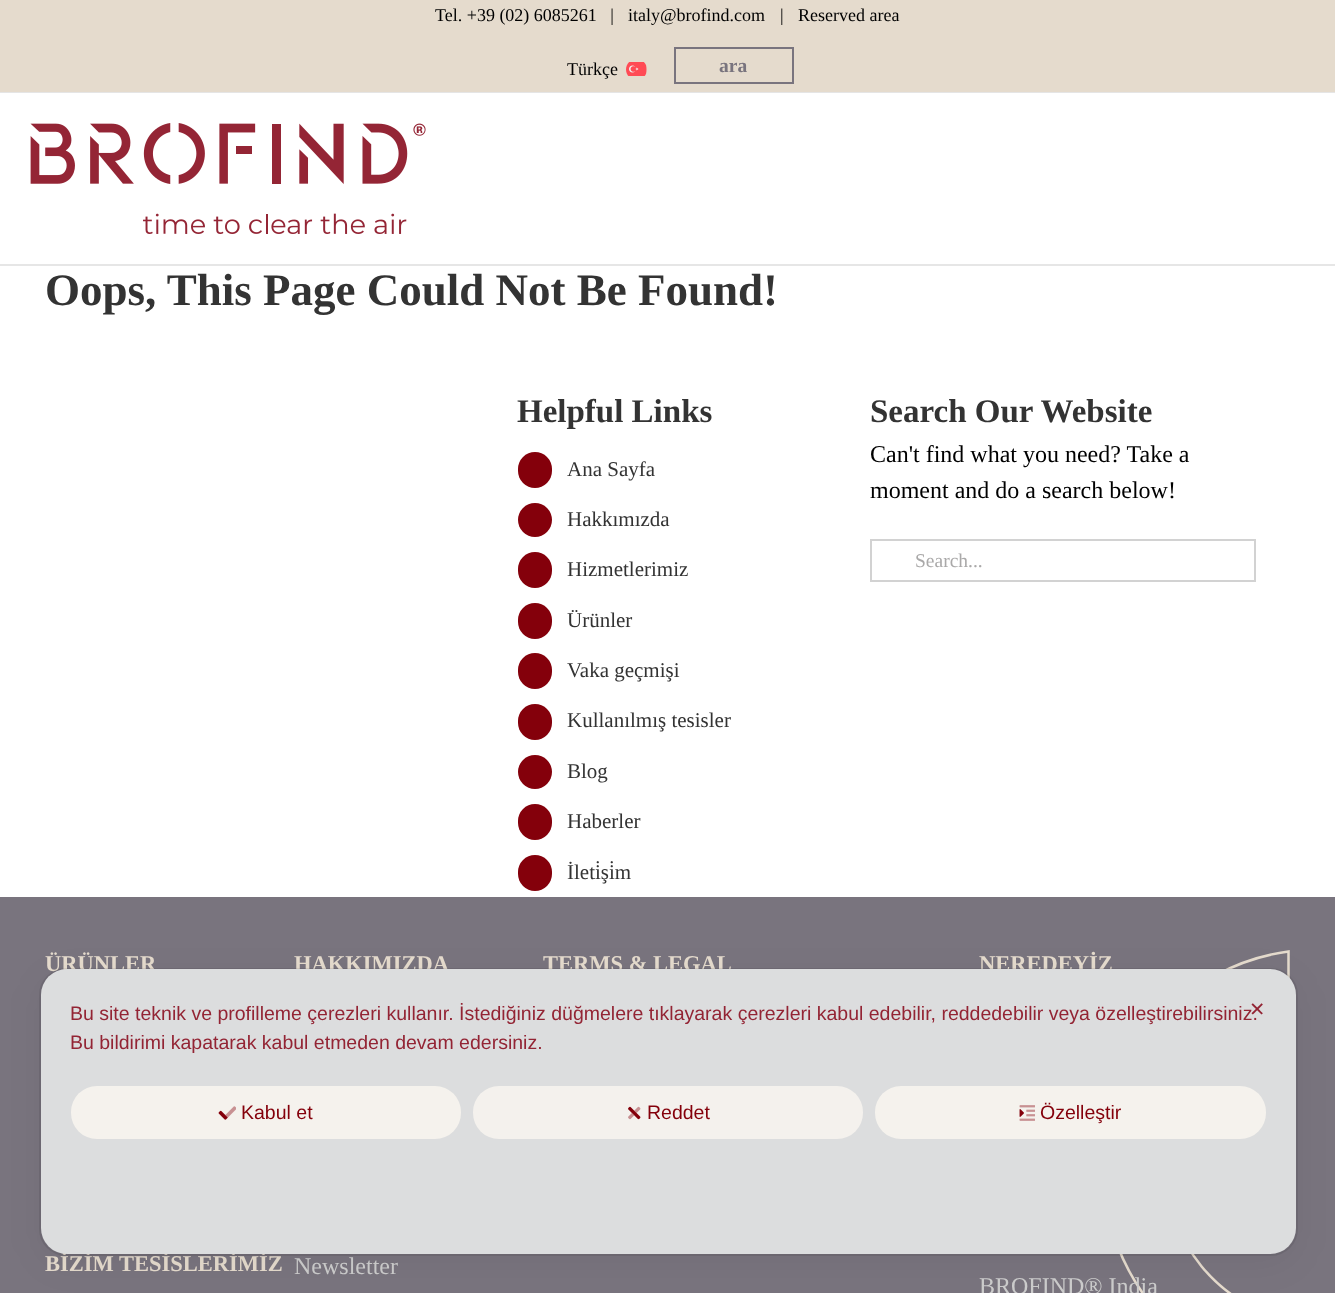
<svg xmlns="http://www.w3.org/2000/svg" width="1335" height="1293">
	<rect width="100%" height="100%" fill="#FFFFFF" />
	<rect x="0" y="0" width="1335" height="92" fill="#E5DBCD" />
	<rect x="0" y="92" width="1335" height="1" fill="#E5E5E5" />
	<g font-family="Liberation Serif" font-size="18" fill="#000000">
		<text x="435" y="21">Tel. +39 (02) 6085261  |</text>
		<text x="628" y="21">italy@brofind.com</text>
		<text x="780" y="21">|</text>
		<text x="798" y="21">Reserved area</text>
		<text x="567" y="75">Türkçe</text>
	</g>
	<image x="626" y="62" width="21" height="14" href="assets/img1.png" />
	<rect x="675" y="48" width="118" height="35" fill="none" stroke="#79747E" stroke-width="2" />
	<text x="719" y="72" font-family="Liberation Serif" font-size="19.5" font-weight="700" fill="#79747E">ara</text>
	<rect x="0" y="264" width="1335" height="2" fill="#E6E6E6" />
	<image x="30" y="123" width="396" height="111" href="assets/img2.png" />
	<text x="45" y="305" font-family="Liberation Serif" font-size="45" font-weight="700" fill="#333333">Oops, This Page Could Not Be Found!</text>
	<text x="517" y="422" font-family="Liberation Serif" font-size="33" font-weight="700" fill="#333333">Helpful Links</text>
	<rect x="518" y="452" width="34" height="36" rx="17" fill="#84000B" />
	<text x="567" y="476" font-family="Liberation Serif" font-size="21" fill="#333333">Ana Sayfa</text>
	<circle cx="535" cy="520" r="17" fill="#84000B" />
	<text x="567" y="526" font-family="Liberation Serif" font-size="21" fill="#333333">Hakkımızda</text>
	<rect x="518" y="552" width="34" height="36" rx="17" fill="#84000B" />
	<text x="567" y="576" font-family="Liberation Serif" font-size="21" fill="#333333">Hizmetlerimiz</text>
	<rect x="518" y="603" width="34" height="36" rx="17" fill="#84000B" />
	<text x="567" y="627" font-family="Liberation Serif" font-size="21" fill="#333333">Ürünler</text>
	<rect x="518" y="653" width="34" height="36" rx="17" fill="#84000B" />
	<text x="567" y="677" font-family="Liberation Serif" font-size="21" fill="#333333">Vaka geçmişi</text>
	<rect x="518" y="704" width="34" height="36" rx="17" fill="#84000B" />
	<text x="567" y="727" font-family="Liberation Serif" font-size="21" fill="#333333">Kullanılmış tesisler</text>
	<circle cx="535" cy="772" r="17" fill="#84000B" />
	<text x="567" y="778" font-family="Liberation Serif" font-size="21" fill="#333333">Blog</text>
	<rect x="518" y="804" width="34" height="36" rx="17" fill="#84000B" />
	<text x="567" y="828" font-family="Liberation Serif" font-size="21" fill="#333333">Haberler</text>
	<rect x="518" y="855" width="34" height="36" rx="17" fill="#84000B" />
	<text x="567" y="879" font-family="Liberation Serif" font-size="21" fill="#333333">İleti̇şi̇m</text>
	<text x="870" y="422" font-family="Liberation Serif" font-size="33" font-weight="700" fill="#333333">Search Our Website</text>
	<g font-family="Liberation Serif" font-size="24" fill="#000000">
		<text x="870" y="462">Can't find what you need? Take a</text>
		<text x="870" y="498">moment and do a search below!</text>
	</g>
	<rect x="871" y="540" width="384" height="41" fill="none" stroke="#D2D2D2" stroke-width="2" />
	<text x="915" y="567" font-family="Liberation Serif" font-size="19.5" fill="#AAA9A9">Search...</text>
	<rect x="0" y="897" width="1335" height="396" fill="#79747E" />
	<path d="M1166.5 1167.5C1166.5 1093 1219 1030.5 1288.5 1015.5V951.5C1183.5 965.5 1103 1056.5 1103 1167C1103 1277 1183.5 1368 1288.5 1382.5V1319.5C1219 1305 1166.5 1242.5 1166.5 1167.5Z" fill="none" stroke="#E5DBCD" stroke-width="2.5" />
	<g font-family="Liberation Serif" font-size="22.5" font-weight="700" fill="#E5DBCD">
		<text x="45" y="971">ÜRÜNLER</text>
		<text x="45" y="1271">BİZİM TESİSLERİMİZ</text>
		<text x="294" y="971">HAKKIMIZDA</text>
	</g>
	<text x="294" y="1274" font-family="Liberation Serif" font-size="24" fill="#CCCCCC">Newsletter</text>
	<g font-family="Liberation Serif" font-size="22.5" font-weight="700" fill="#E5DBCD">
		<text x="543" y="971">TERMS &amp; LEGAL</text>
		<text x="979" y="971">NEREDEYİZ</text>
	</g>
	<text x="979" y="1294" font-family="Liberation Serif" font-size="24" fill="#CCCCCC">BROFIND® India</text>
	<rect x="40" y="969" width="1257" height="286" rx="26" fill="none" stroke="#000000" stroke-opacity="0.08" stroke-width="2" />
	<rect x="41" y="978" width="1255" height="285" rx="26" fill="#000000" fill-opacity="0.05" filter="blur(18px)" />
	<rect x="41" y="969" width="1255" height="285" rx="26" fill="#DCDDDE" />
	<g font-family="Liberation Sans" font-size="19.5" fill="#932434">
		<text x="70" y="1020">Bu site teknik ve profilleme çerezleri kullanır. İstediğiniz düğmelere tıklayarak çerezleri kabul edebilir, reddedebilir veya özelleştirebilirsiniz.</text>
		<text x="70" y="1049">Bu bildirimi kapatarak kabul etmeden devam edersiniz.</text>
	</g>
	<rect x="71" y="1086" width="390" height="53" rx="26" fill="#F5F2ED" />
	<image x="218" y="1106" width="18" height="14" href="assets/img3.png" />
	<text x="241" y="1119" font-family="Liberation Sans" font-size="19.5" fill="#84000B">Kabul et</text>
	<rect x="473" y="1086" width="390" height="53" rx="26" fill="#F4F1ED" />
	<image x="628" y="1106" width="13" height="14" href="assets/img4.png" />
	<text x="647" y="1119" font-family="Liberation Sans" font-size="19.5" fill="#84000B">Reddet</text>
	<rect x="875" y="1086" width="391" height="53" rx="26" fill="#F5F2ED" />
	<image x="1019" y="1105" width="16" height="16" href="assets/img5.png" />
	<text x="1040" y="1119" font-family="Liberation Sans" font-size="19.5" fill="#84000B">Özelleştir</text>
	<text x="1249" y="1016" font-family="DejaVu Sans" font-size="19.5" fill="#932434">✕</text>
</svg>
